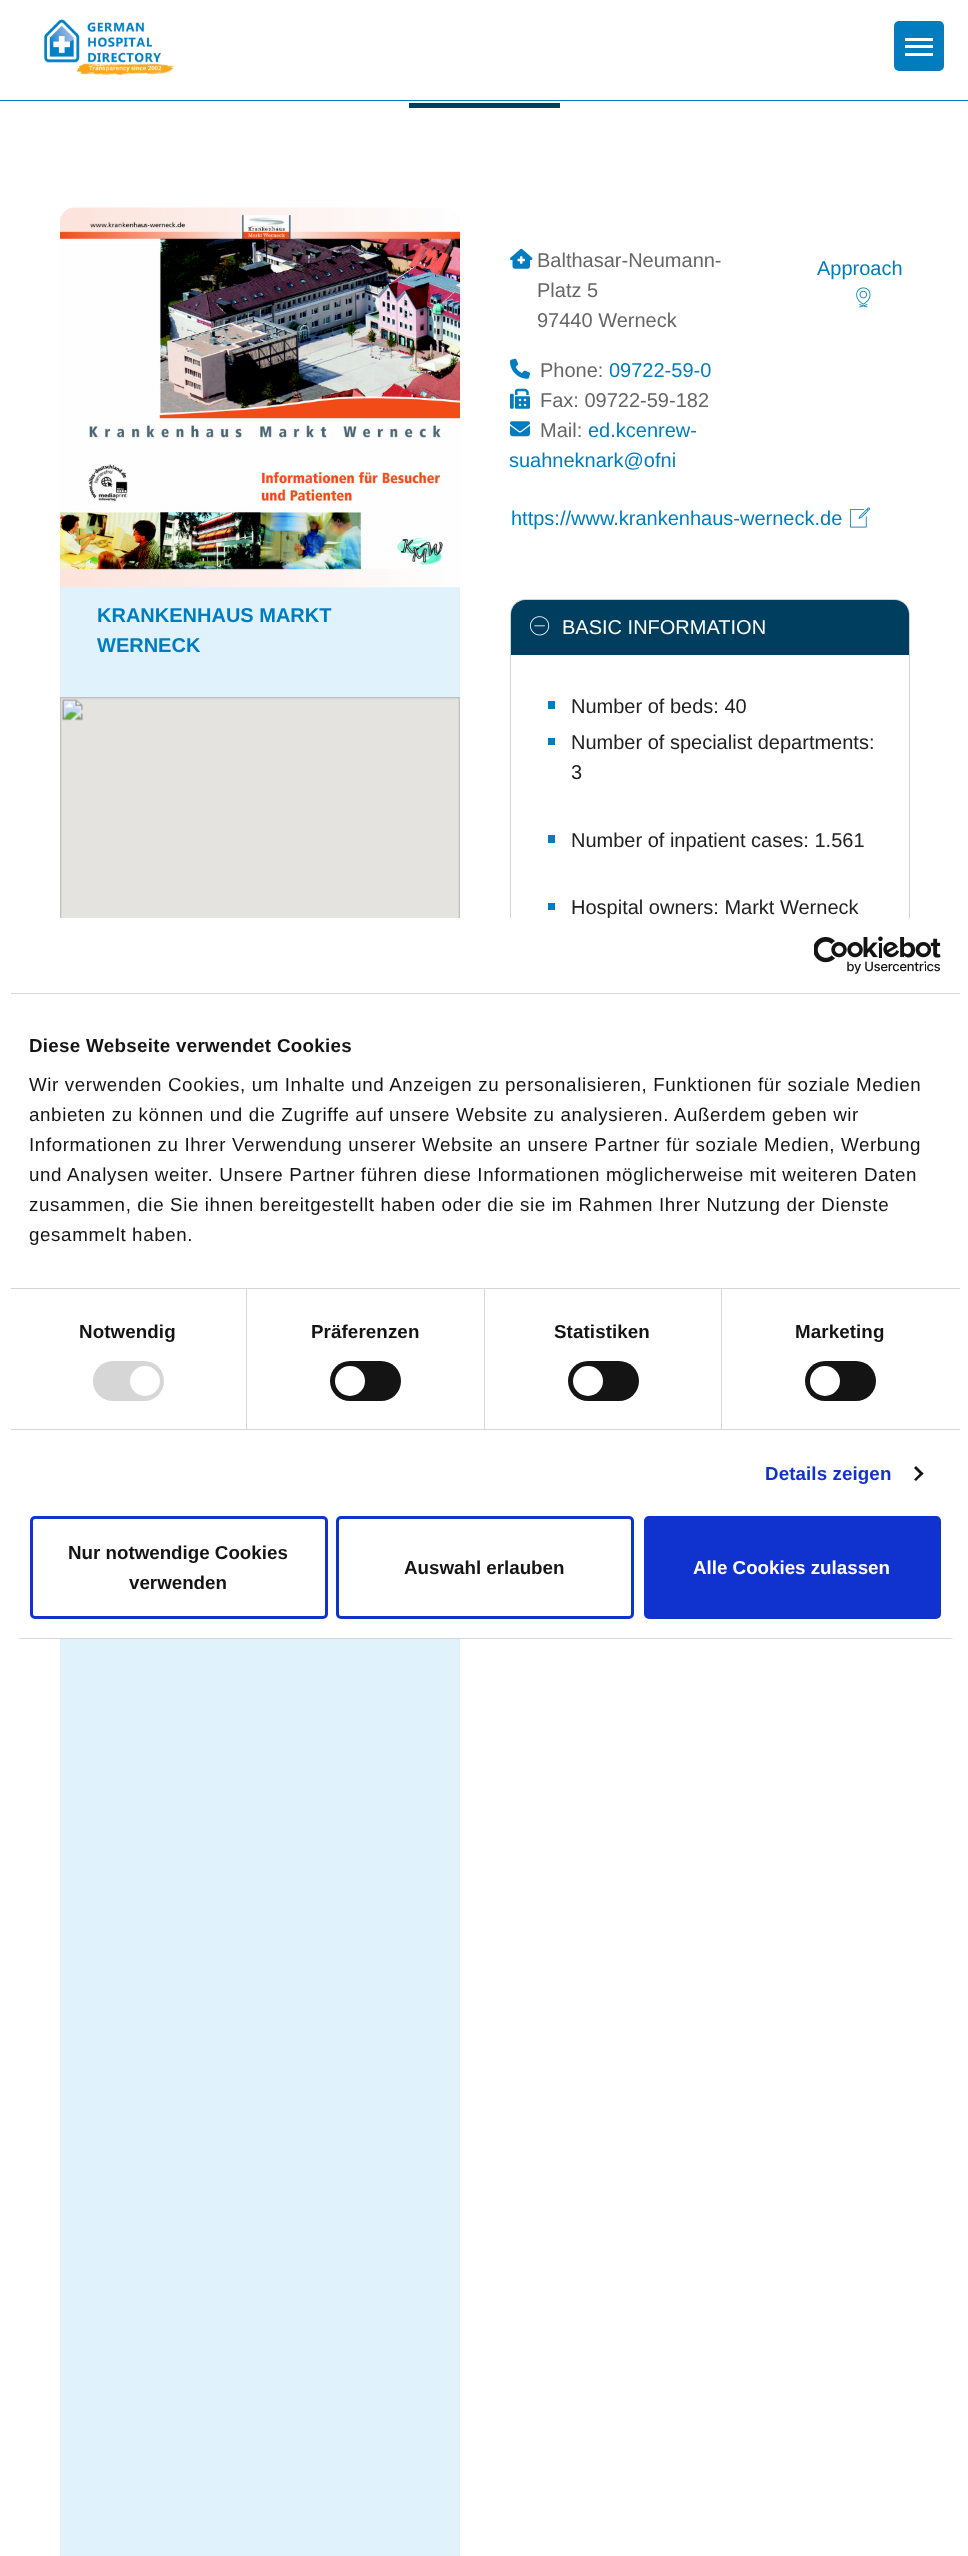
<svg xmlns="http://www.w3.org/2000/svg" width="968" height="2556">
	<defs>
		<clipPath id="clip1"><rect x="11" y="918" width="949" height="721" rx="10" /></clipPath>
	</defs>
	<rect width="100%" height="100%" fill="#FFFFFF" />
	<rect x="0" y="100" width="968" height="1" fill="#007CBF" />
	<image x="43" y="19" width="134" height="56" href="assets/img1.png" />
	<rect x="894" y="21" width="50" height="50" rx="5" fill="#007CBF" />
	<rect x="905" y="45" width="28" height="3" fill="#FFFFFF" />
	<rect x="905" y="38" width="28" height="3" fill="#FFFFFF" />
	<rect x="905" y="53" width="28" height="3" fill="#FFFFFF" />
	<rect x="409" y="103" width="151" height="5" fill="#003E5F" />
	<rect x="60" y="208" width="400" height="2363" rx="15" fill="#E0F2FC" />
	<image x="60" y="207" width="400" height="381" href="assets/img2.png" />
	<g font-family="Liberation Sans" font-size="20" font-weight="700" fill="#007CBF">
		<text x="97" y="622">KRANKENHAUS MARKT</text>
		<text x="97" y="652">WERNECK</text>
	</g>
	<image x="60" y="697" width="400" height="221" href="assets/img3.png" />
	<image x="510" y="248" width="23" height="21" href="assets/img4.png" />
	<g font-family="Liberation Sans" font-size="20" fill="#666666">
		<text x="537" y="267">Balthasar-Neumann-</text>
		<text x="537" y="297">Platz 5</text>
		<text x="537" y="327">97440 Werneck</text>
	</g>
	<image x="510" y="358" width="20" height="21" href="assets/img5.png" />
	<text x="540" y="377" font-family="Liberation Sans" font-size="20" fill="#666666">Phone:</text>
	<text x="609" y="377" font-family="Liberation Sans" font-size="20" fill="#007CBF">09722-59-0</text>
	<image x="510" y="388" width="20" height="21" href="assets/img6.png" />
	<text x="540" y="407" font-family="Liberation Sans" font-size="20" fill="#666666">Fax: 09722-59-182</text>
	<image x="510" y="421" width="20" height="16" href="assets/img7.png" />
	<text x="540" y="437" font-family="Liberation Sans" font-size="20" fill="#666666">Mail:</text>
	<g font-family="Liberation Sans" font-size="20" fill="#007CBF">
		<text x="588" y="437">ed.kcenrew-</text>
		<text x="509" y="467">suahneknark@ofni</text>
		<text x="817" y="275">Approach</text>
	</g>
	<image x="856" y="287" width="15" height="21" href="assets/img8.png" />
	<text x="511" y="525" font-family="Liberation Sans" font-size="20" fill="#007CBF">https://www.krankenhaus-werneck.de</text>
	<image x="850" y="507" width="20" height="21" href="assets/img9.png" />
	<rect x="510.5" y="599.5" width="399" height="396" rx="14.5" fill="none" stroke="#D2D2D2" />
	<path d="M525 600H895C902.5 600 909 606.5 909 614V655H511V614C511 606.5 517.5 600 525 600Z" fill="#003E5F" />
	<image x="530" y="616" width="20" height="20" href="assets/img10.png" />
	<text x="562" y="634" font-family="Liberation Sans" font-size="20" fill="#FFFFFF">BASIC INFORMATION</text>
	<rect x="548" y="701" width="7" height="8" fill="#007CBF" />
	<text x="571" y="713" font-family="Liberation Sans" font-size="20" fill="#212121">Number of beds: 40</text>
	<rect x="548" y="738" width="7" height="7" fill="#007CBF" />
	<g font-family="Liberation Sans" font-size="20" fill="#212121">
		<text x="571" y="749">Number of specialist departments:</text>
		<text x="571" y="779">3</text>
	</g>
	<rect x="548" y="835" width="7" height="8" fill="#007CBF" />
	<text x="571" y="847" font-family="Liberation Sans" font-size="20" fill="#212121">Number of inpatient cases: 1.561</text>
	<rect x="548" y="903" width="7" height="7" fill="#007CBF" />
	<text x="571" y="914" font-family="Liberation Sans" font-size="20" fill="#212121">Hospital owners: Markt Werneck</text>
	<rect x="11" y="918" width="949" height="721" rx="10" fill="#FFFFFF" />
	<rect x="11" y="993" width="949" height="1" fill="#D6D6D6" />
	<image x="814" y="936" width="127" height="38" href="assets/img11.png" />
	<rect x="11" y="1288" width="949" height="1" fill="#D6D6D6" />
	<text x="29" y="1052" font-family="Liberation Sans" font-size="18.75" font-weight="700" letter-spacing="0.3" fill="#141414">Diese Webseite verwendet Cookies</text>
	<g font-family="Liberation Sans" font-size="18.75" letter-spacing="0.62" fill="#141414">
		<text x="29" y="1091">Wir verwenden Cookies, um Inhalte und Anzeigen zu personalisieren, Funktionen für soziale Medien</text>
		<text x="29" y="1121">anbieten zu können und die Zugriffe auf unsere Website zu analysieren. Außerdem geben wir</text>
		<text x="29" y="1151">Informationen zu Ihrer Verwendung unserer Website an unsere Partner für soziale Medien, Werbung</text>
		<text x="29" y="1181">und Analysen weiter. Unsere Partner führen diese Informationen möglicherweise mit weiteren Daten</text>
		<text x="29" y="1211">zusammen, die Sie ihnen bereitgestellt haben oder die sie im Rahmen Ihrer Nutzung der Dienste</text>
		<text x="29" y="1241">gesammelt haben.</text>
	</g>
	<rect x="11" y="1429" width="949" height="1" fill="#D6D6D6" />
	<rect x="246" y="1289" width="1" height="140" fill="#D6D6D6" />
	<text x="79" y="1338" font-family="Liberation Sans" font-size="18.75" font-weight="700" letter-spacing="0.1" fill="#141414">Notwendig</text>
	<rect x="93" y="1361" width="71" height="40" rx="20" fill="#D6D6D6" />
	<circle cx="145" cy="1381" r="15" fill="#FFFFFF" />
	<rect x="484" y="1289" width="1" height="140" fill="#D6D6D6" />
	<text x="311" y="1338" font-family="Liberation Sans" font-size="18.75" font-weight="700" letter-spacing="0.1" fill="#141414">Präferenzen</text>
	<rect x="330" y="1361" width="71" height="40" rx="20" fill="#141414" />
	<circle cx="350" cy="1381" r="15" fill="#FFFFFF" />
	<rect x="721" y="1289" width="1" height="140" fill="#D6D6D6" />
	<text x="554" y="1338" font-family="Liberation Sans" font-size="18.75" font-weight="700" letter-spacing="0.1" fill="#141414">Statistiken</text>
	<rect x="568" y="1361" width="71" height="40" rx="20" fill="#141414" />
	<circle cx="588" cy="1381" r="15" fill="#FFFFFF" />
	<text x="795" y="1338" font-family="Liberation Sans" font-size="18.75" font-weight="700" letter-spacing="0.1" fill="#141414">Marketing</text>
	<rect x="805" y="1361" width="71" height="40" rx="20" fill="#141414" />
	<circle cx="825" cy="1381" r="15" fill="#FFFFFF" />
	<text x="765" y="1480" font-family="Liberation Sans" font-size="18.75" font-weight="700" letter-spacing="0.1" fill="#1032CF">Details zeigen</text>
	<path d="M916 1466L923.5 1473.5L921.5 1475.5L914 1468Z" fill="#141414" />
	<path d="M921.5 1472L923.5 1473.5L916 1481L914 1479.5Z" fill="#141414" />
	<g clip-path="url(#clip1)">
		<rect x="11" y="1638" width="949" height="1" fill="#D6D6D6" />
	</g>
	<rect x="31.5" y="1517.5" width="295" height="100" rx="3.5" fill="none" stroke="#1032CF" stroke-width="3" />
	<g font-family="Liberation Sans" font-size="18.75" font-weight="700" fill="#141414">
		<text x="68" y="1559">Nur notwendige Cookies</text>
		<text x="129" y="1589">verwenden</text>
	</g>
	<rect x="337.5" y="1517.5" width="295" height="100" rx="3.5" fill="none" stroke="#1032CF" stroke-width="3" />
	<text x="404" y="1574" font-family="Liberation Sans" font-size="18.75" font-weight="700" fill="#141414">Auswahl erlauben</text>
	<rect x="645.5" y="1517.5" width="294" height="100" rx="3.5" fill="#1032CF" stroke="#1032CF" stroke-width="3" />
	<text x="693" y="1574" font-family="Liberation Sans" font-size="18.75" font-weight="700" fill="#FFFFFF">Alle Cookies zulassen</text>
</svg>
